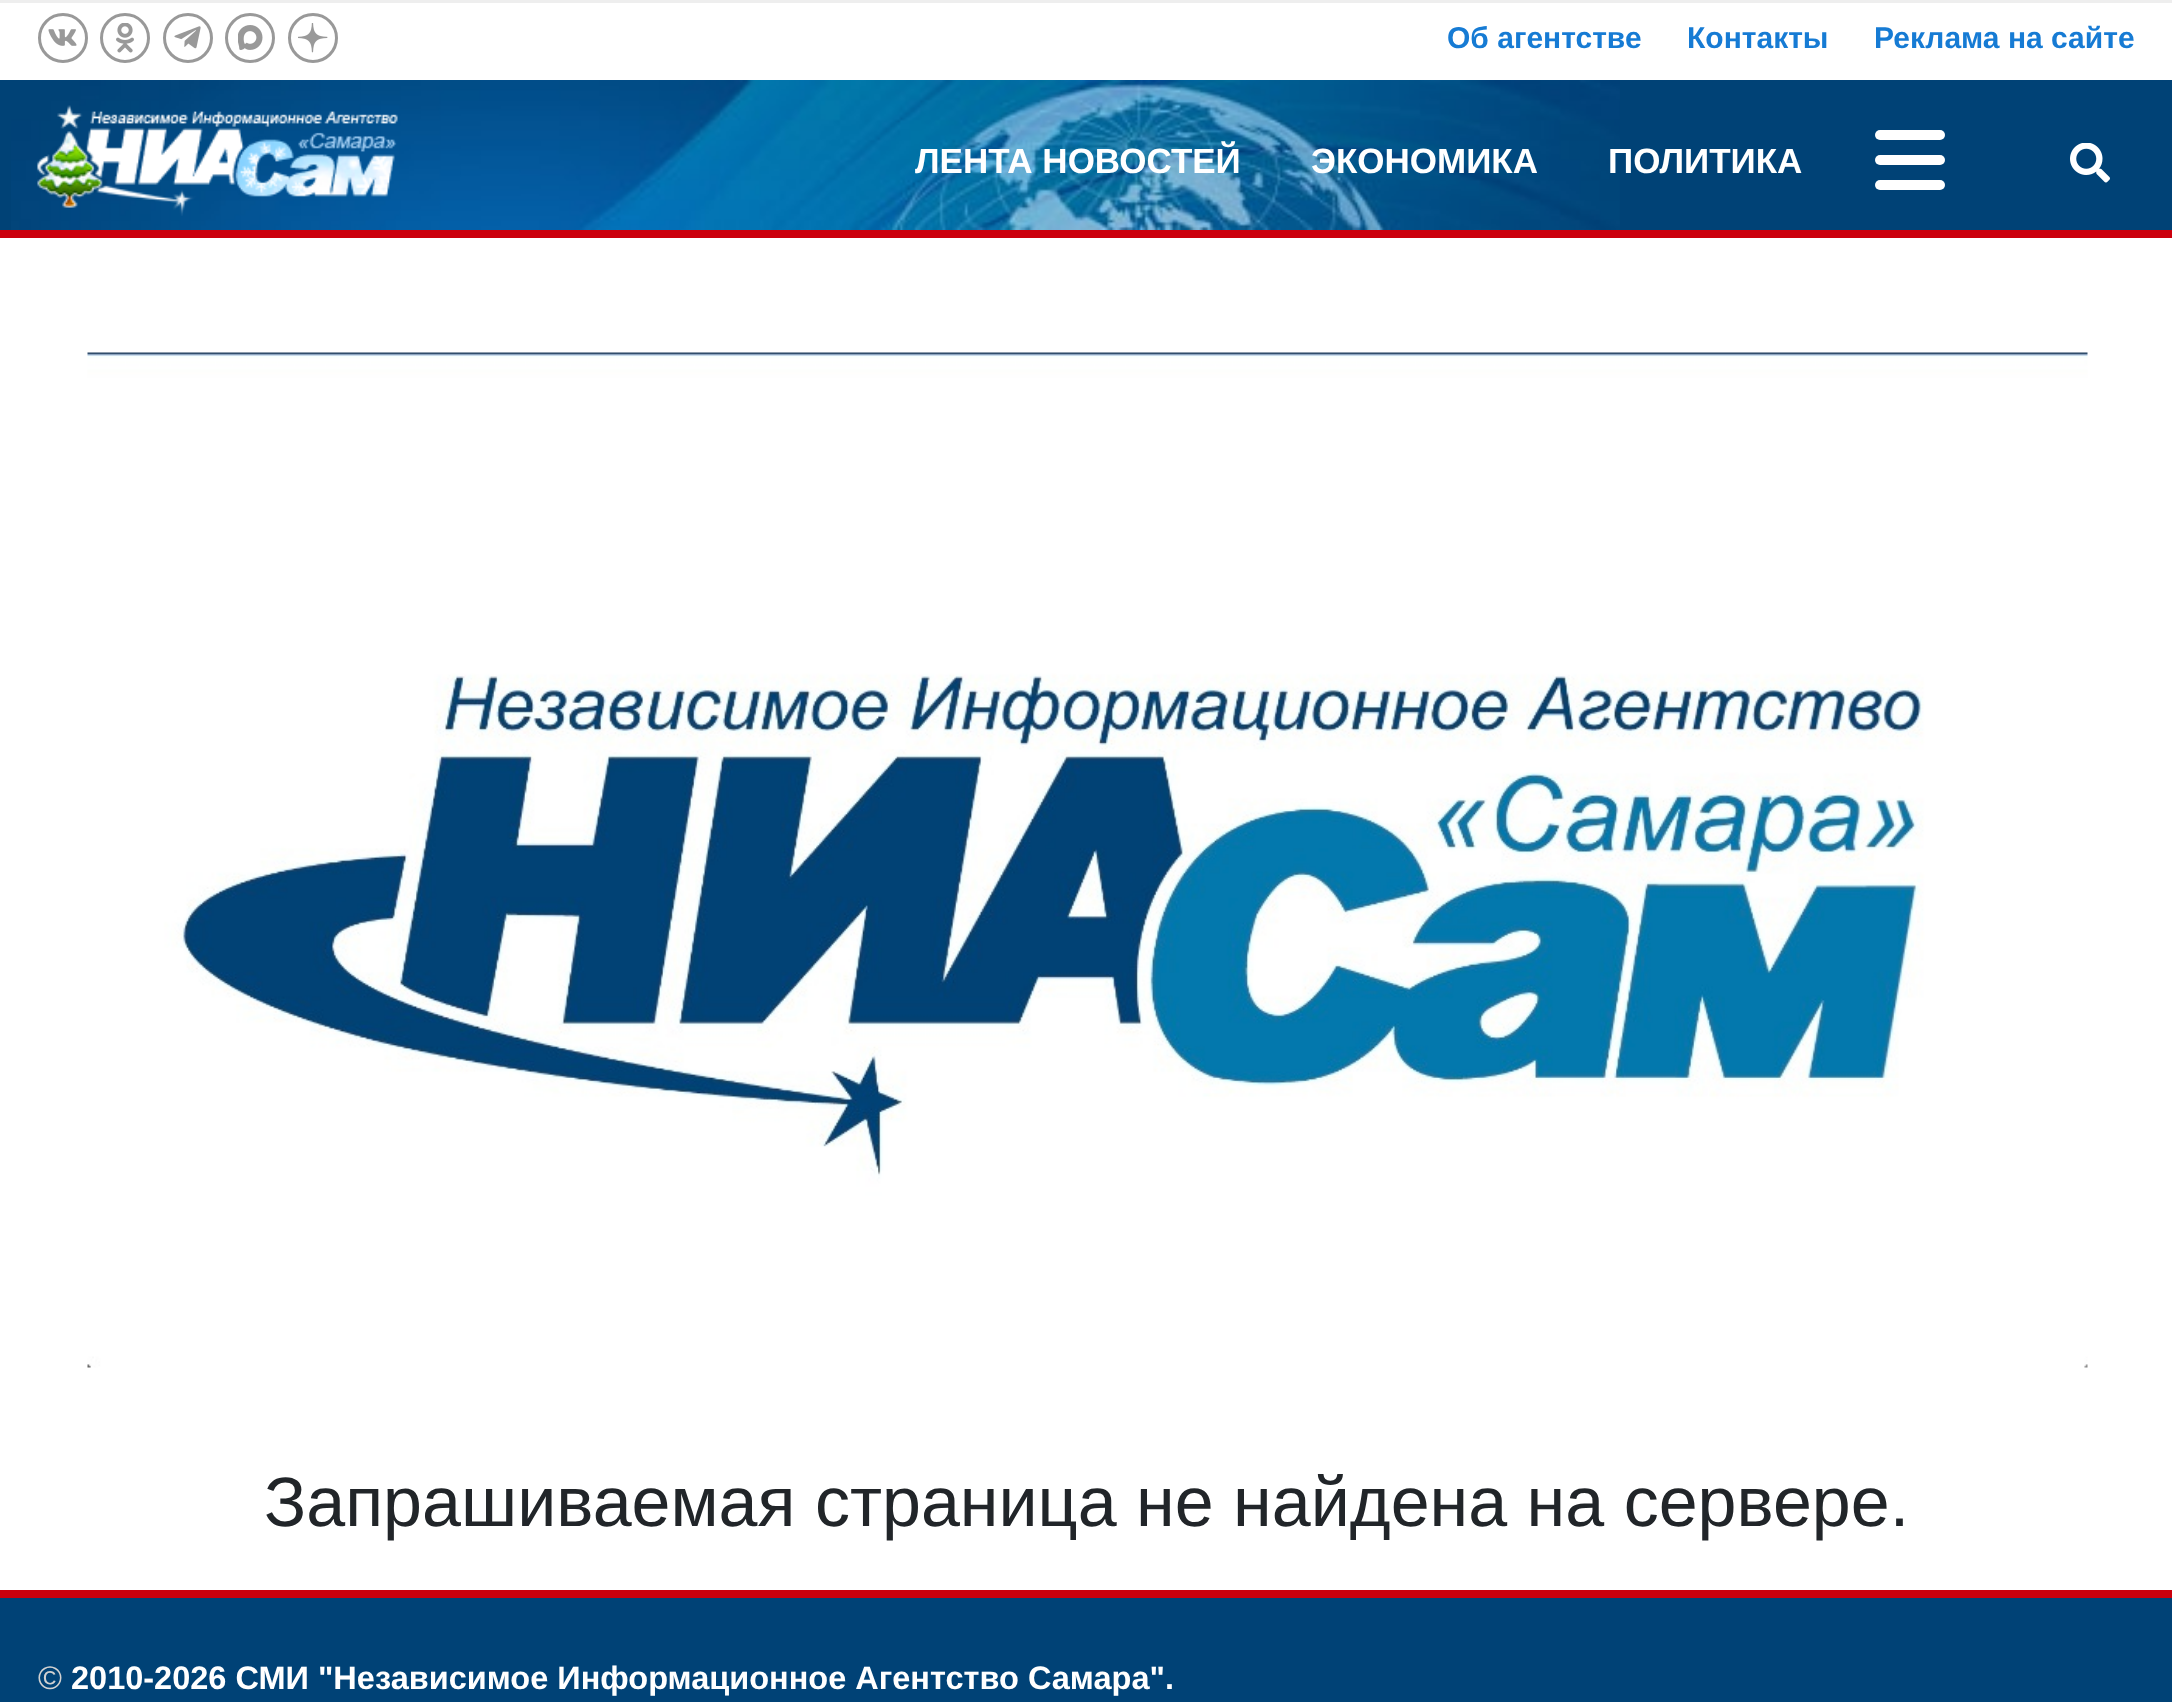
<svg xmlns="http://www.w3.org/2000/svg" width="2172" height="1702">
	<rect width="100%" height="100%" fill="#FFFFFF" />
	<rect x="0" y="0" width="2172" height="3" fill="#EEEEEE" />
	<rect x="0" y="230" width="2172" height="8" fill="#CB000D" />
	<circle cx="63" cy="38" r="23.5" fill="none" stroke="#999999" stroke-width="3" />
	<image x="48" y="29" width="29" height="17" href="assets/img1.png" />
	<circle cx="125" cy="38" r="23.5" fill="none" stroke="#999999" stroke-width="3" />
	<image x="116" y="23" width="18" height="30" href="assets/img2.png" />
	<circle cx="188" cy="38" r="23.5" fill="none" stroke="#999999" stroke-width="3" />
	<image x="174" y="26" width="27" height="23" href="assets/img3.png" />
	<circle cx="250" cy="38" r="23.5" fill="none" stroke="#999999" stroke-width="3" />
	<image x="238" y="25" width="25" height="25" href="assets/img4.png" />
	<circle cx="313" cy="38" r="23.5" fill="none" stroke="#999999" stroke-width="3" />
	<image x="298" y="23" width="30" height="30" href="assets/img5.png" />
	<g font-family="Liberation Sans" font-size="30" font-weight="700" fill="#167BD4">
		<text x="1447" y="48">Об агентстве</text>
		<text x="1687" y="48">Контакты</text>
		<text x="1874" y="48">Реклама на сайте</text>
	</g>
	<rect x="0" y="80" width="2172" height="150" fill="#004276" />
	<image x="11" y="80" width="1609" height="150" href="assets/img6.png" />
	<image x="37" y="105" width="361" height="111" href="assets/img7.png" />
	<g font-family="Liberation Sans" font-size="35" font-weight="700" fill="#FFFFFF">
		<text x="915" y="173">ЛЕНТА НОВОСТЕЙ</text>
		<text x="1311" y="173">ЭКОНОМИКА</text>
		<text x="1608" y="173">ПОЛИТИКА</text>
	</g>
	<rect x="1875" y="130" width="70" height="10" rx="5" fill="#FFFFFF" />
	<rect x="1875" y="155" width="70" height="10" rx="5" fill="#FFFFFF" />
	<rect x="1875" y="180" width="70" height="10" rx="5" fill="#FFFFFF" />
	<image x="2070" y="143" width="40" height="40" href="assets/img8.png" />
	<image x="87" y="352" width="2001" height="1016" href="assets/img9.png" />
	<text x="264" y="1526" font-family="Liberation Sans" font-size="70" fill="#212529">Запрашиваемая страница не найдена на сервере.</text>
	<rect x="0" y="1598" width="2172" height="104" fill="#004276" />
	<rect x="0" y="1590" width="2172" height="8" fill="#CB000D" />
	<text x="38" y="1689" font-family="Liberation Sans" font-size="32.5" fill="#D1D1D1">©</text>
	<text x="71" y="1689" font-family="Liberation Sans" font-size="32.5" font-weight="700" fill="#FFFFFF">2010-2026 СМИ "Независимое Информационное Агентство Самара".</text>
</svg>
